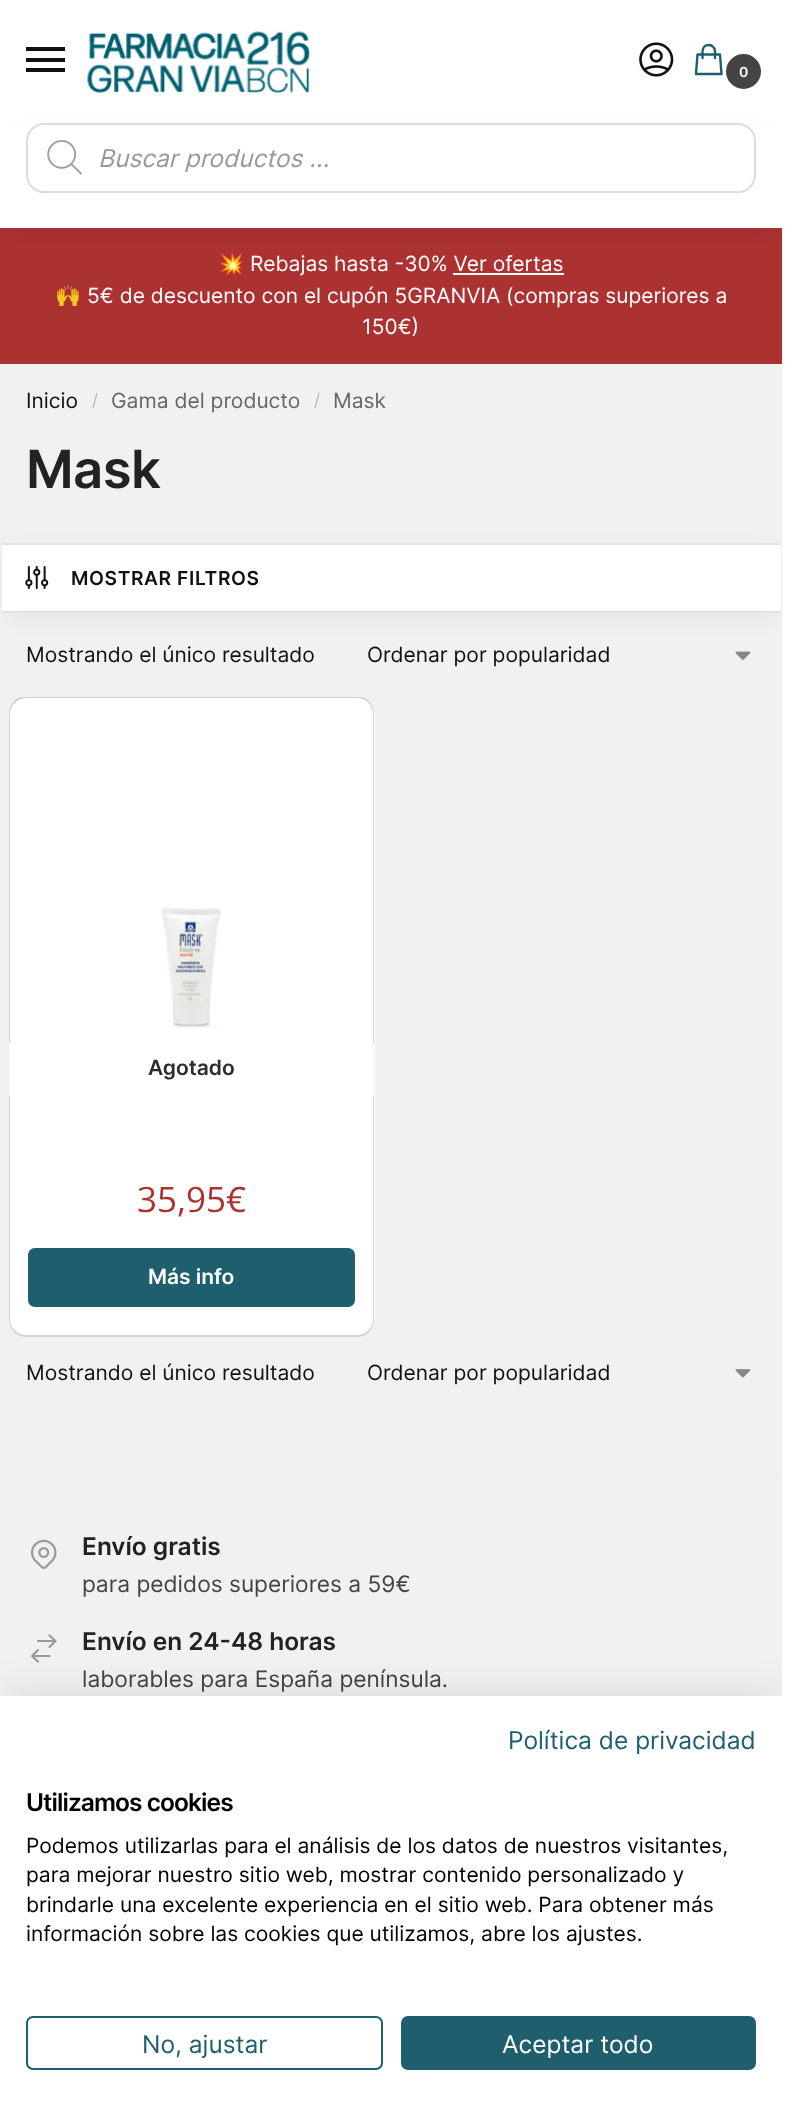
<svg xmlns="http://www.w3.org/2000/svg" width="808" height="2116">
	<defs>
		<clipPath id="clip1"><rect x="9" y="697" width="366" height="399" /></clipPath>
		<clipPath id="clip2"><rect x="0" y="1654" width="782" height="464" /></clipPath>
	</defs>
	<rect width="100%" height="100%" fill="#F2F1F1" />
	<rect x="0" y="0" width="782" height="123" fill="#FFFFFF" />
	<rect x="26" y="47" width="39" height="4" fill="#111111" />
	<rect x="26" y="58" width="39" height="4" fill="#111111" />
	<rect x="26" y="68" width="39" height="4" fill="#111111" />
	<image x="87" y="30" width="223" height="63" href="assets/img1.png" />
	<image x="639" y="42" width="35" height="35" href="assets/img2.png" />
	<path d="M715 58V51.5C715 48 712.5 45 709 45C705 45 702.5 48 702.5 51.5V58M697.5 54.5H720L721.5 74H696Z" fill="none" stroke="#1F5E6D" stroke-width="2.4" stroke-linecap="round" stroke-linejoin="round" />
	<circle cx="743.5" cy="71.5" r="16.5" fill="#444444" stroke="#444444" stroke-width="2" />
	<text x="739" y="77" font-family="Inter" font-size="14" font-weight="600" fill="#FFFFFF">0</text>
	<rect x="0" y="228" width="782" height="136" fill="#AC3232" />
	<rect x="9" y="137" width="765" height="87" fill="#000000" fill-opacity="0.18" filter="blur(9px)" />
	<rect x="0" y="123" width="782" height="105" fill="#FFFFFF" />
	<rect x="27" y="124" width="728" height="68" rx="17" fill="none" stroke="#DDDDDD" stroke-width="2" />
	<image x="47" y="140" width="35" height="35" href="assets/img3.png" />
	<text x="98" y="167" font-family="Inter" font-size="24.5" font-style="italic" fill="#999999">Buscar productos ...</text>
	<rect x="5" y="553" width="772" height="63" fill="#000000" fill-opacity="0.06" filter="blur(10.5px)" />
	<rect x="782" y="0" width="26" height="2116" fill="#FFFFFF" />
	<text x="218" y="271" font-family="Noto Color Emoji" font-size="21" fill="#FFFFFF">💥</text>
	<text x="250" y="271" font-family="Inter" font-size="21" fill="#FFFFFF">Rebajas hasta -30% Ver ofertas</text>
	<rect x="453" y="273" width="111" height="2" fill="#FFFFFF" />
	<text x="55" y="303" font-family="Noto Color Emoji" font-size="21" fill="#FFFFFF">🙌</text>
	<g font-family="Inter" font-size="21" fill="#FFFFFF">
		<text x="87" y="303">5€ de descuento con el cupón 5GRANVIA (compras superiores a</text>
		<text x="362" y="334">150€)</text>
	</g>
	<text x="26" y="408" font-family="Inter" font-size="21" fill="#111111">Inicio</text>
	<text x="92" y="406" font-family="Inter" font-size="17" fill="#BAB9B9">/</text>
	<text x="111" y="408" font-family="Inter" font-size="21" fill="#666666">Gama del producto</text>
	<text x="314" y="406" font-family="Inter" font-size="17" fill="#BAB9B9">/</text>
	<text x="333" y="408" font-family="Inter" font-size="21" fill="#666666">Mask</text>
	<text x="26" y="488" font-family="Inter" font-size="52.5" font-weight="600" letter-spacing="-0.5" fill="#222222">Mask</text>
	<rect x="2" y="545" width="779" height="66" fill="#FFFFFF" />
	<rect x="2" y="543" width="779" height="2" fill="#E2E2E2" />
	<rect x="2" y="611" width="779" height="2" fill="#E2E2E2" />
	<image x="25" y="566" width="24" height="23" href="assets/img4.png" />
	<text x="71" y="585" font-family="Inter" font-size="19.25" font-weight="600" letter-spacing="0.6" fill="#111111">MOSTRAR FILTROS</text>
	<text x="26" y="662" font-family="Inter" font-size="21" fill="#111111">Mostrando el único resultado</text>
	<image x="735" y="651" width="16" height="9" href="assets/img5.png" />
	<text x="367" y="662" font-family="Inter" font-size="21" fill="#111111">Ordenar por popularidad</text>
	<path d="M9 1057H375V1319C375 1329 367 1337 357 1337H27C17 1337 9 1329 9 1319Z" fill="#FFFFFF" />
	<path d="M9 1057H374V1320C374 1329 367 1337 357 1337H26C17 1337 9 1329 9 1320ZM10 1057H373V1320C373 1328 366 1335 357 1335H26C18 1335 10 1328 10 1320Z" fill="#D2D2D2" fill-rule="evenodd" />
	<path d="M27 697H357C367 697 375 705 375 715V1096H9V715C9 705 17 697 27 697Z" fill="#FFFFFF" />
	<g clip-path="url(#clip1)">
		<path d="M26 696H357C367 696 374 704 374 714V1096H9V714C9 704 17 696 26 696ZM26 698H357C366 698 373 705 373 714V1096H10V714C10 705 18 698 26 698Z" fill="#D2D2D2" fill-rule="evenodd" />
	</g>
	<image x="161" y="907" width="61" height="122" href="assets/img6.png" />
	<rect x="9" y="1043" width="365" height="53" fill="#FFFFFF" fill-opacity="0.85" />
	<text x="148" y="1075" font-family="Inter" font-size="21" font-weight="600" fill="#2C2D33">Agotado</text>
	<text x="137" y="1212" font-family="Open Sans" font-size="35" fill="#AC3232">35,95€</text>
	<rect x="28" y="1248" width="327" height="59" rx="7" fill="#1F5E6D" />
	<text x="148" y="1284" font-family="Inter" font-size="21" font-weight="600" fill="#FFFFFF">Más info</text>
	<text x="26" y="1380" font-family="Inter" font-size="21" fill="#111111">Mostrando el único resultado</text>
	<image x="735" y="1369" width="16" height="9" href="assets/img7.png" />
	<text x="367" y="1380" font-family="Inter" font-size="21" fill="#111111">Ordenar por popularidad</text>
	<rect x="0" y="1474" width="782" height="2" fill="#EEEEEE" />
	<text x="82" y="1555" font-family="Inter" font-size="24.5" font-weight="600" fill="#222222">Envío gratis</text>
	<image x="31" y="1539" width="26" height="30" href="assets/img8.png" />
	<text x="82" y="1592" font-family="Inter" font-size="22.75" fill="#444444">para pedidos superiores a 59€</text>
	<text x="82" y="1650" font-family="Inter" font-size="24.5" font-weight="600" fill="#222222">Envío en 24-48 horas</text>
	<path d="M38 1641H55.5M55.5 1641L49.5 1635.5M55.5 1641L49.5 1647M49.5 1656H32M32 1656L38 1661.5M32 1656L38 1650" fill="none" stroke="#999999" stroke-width="2.2" stroke-linecap="round" stroke-linejoin="round" />
	<text x="82" y="1687" font-family="Inter" font-size="22.75" fill="#444444">laborables para España península.</text>
	<g clip-path="url(#clip2)">
		<rect x="0" y="1696" width="782" height="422" fill="#000000" fill-opacity="0.1" filter="blur(21px)" />
	</g>
	<rect x="0" y="1696" width="782" height="420" fill="#FFFFFF" />
	<text x="508" y="1749" font-family="Inter" font-size="24.5" fill="#1F5E6D">Política de privacidad</text>
	<text x="26" y="1811" font-family="Inter" font-size="24.5" font-weight="600" letter-spacing="-0.9" fill="#000000">Utilizamos cookies</text>
	<g font-family="Inter" font-size="21" fill="#000000">
		<text x="26" y="1853">Podemos utilizarlas para el análisis de los datos de nuestros visitantes,</text>
		<text x="26" y="1882">para mejorar nuestro sitio web, mostrar contenido personalizado y</text>
		<text x="26" y="1912">brindarle una excelente experiencia en el sitio web. Para obtener más</text>
		<text x="26" y="1941">información sobre las cookies que utilizamos, abre los ajustes.</text>
	</g>
	<rect x="27" y="2017" width="355" height="52" rx="6" fill="none" stroke="#1F5E6D" stroke-width="2" />
	<text x="142" y="2053" font-family="Inter" font-size="24.5" fill="#1F5E6D">No, ajustar</text>
	<rect x="402" y="2017" width="353" height="52" rx="6" fill="#1F5E6D" stroke="#1F5E6D" stroke-width="2" />
	<text x="502" y="2053" font-family="Inter" font-size="24.5" fill="#FFFFFF">Aceptar todo</text>
</svg>
